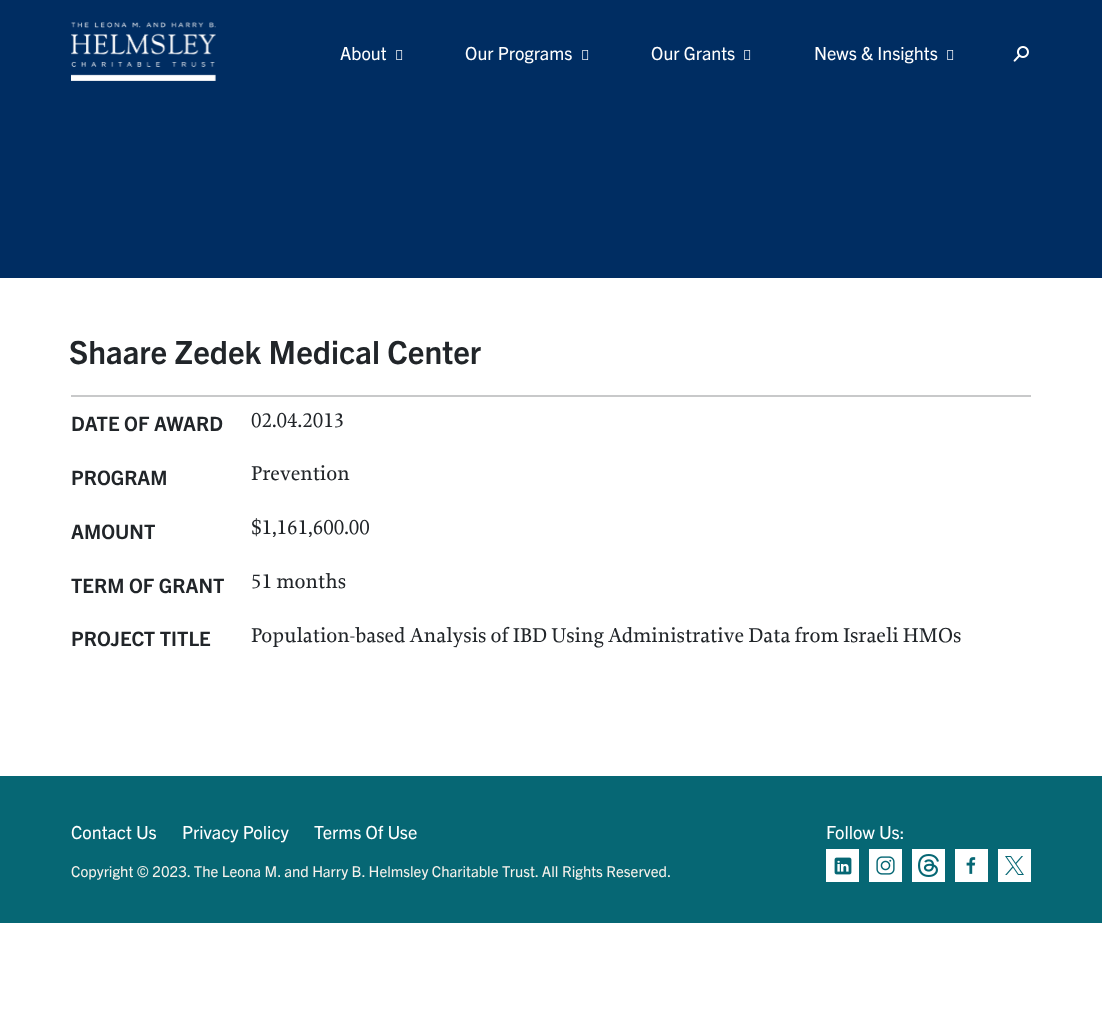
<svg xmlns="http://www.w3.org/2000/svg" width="1102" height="1022">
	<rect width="100%" height="100%" fill="#FFFFFF" />
	<rect x="0" y="0" width="1102" height="278" fill="#002D62" />
	<image x="71" y="22" width="145" height="59" href="assets/img1.png" />
	<text x="340" y="60" font-family="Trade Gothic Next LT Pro" font-size="18" fill="#FFFFFF">About</text>
	<image x="396" y="50" width="7" height="10" href="assets/img2.png" />
	<text x="465" y="60" font-family="Trade Gothic Next LT Pro" font-size="18" fill="#FFFFFF">Our Programs</text>
	<image x="582" y="50" width="7" height="10" href="assets/img2.png" />
	<text x="651" y="60" font-family="Trade Gothic Next LT Pro" font-size="18" fill="#FFFFFF">Our Grants</text>
	<image x="744" y="50" width="7" height="10" href="assets/img2.png" />
	<text x="814" y="60" font-family="Trade Gothic Next LT Pro" font-size="18" fill="#FFFFFF">News &amp; Insights</text>
	<image x="947" y="50" width="7" height="10" href="assets/img2.png" />
	<image x="1013" y="46" width="16" height="16" href="assets/img3.png" />
	<text x="69" y="364" font-family="Trade Gothic Next LT Pro" font-size="32" font-weight="700" fill="#212529">Shaare Zedek Medical Center</text>
	<rect x="71" y="395" width="960" height="2" fill="#C8C9CA" />
	<text x="71" y="431" font-family="Trade Gothic Next LT Pro" font-size="20" font-weight="700" fill="#212529">DATE OF AWARD</text>
	<text x="251" y="427" font-family="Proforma" font-size="21" font-weight="500" fill="#212529">02.04.2013</text>
	<text x="71" y="485" font-family="Trade Gothic Next LT Pro" font-size="20" font-weight="700" fill="#212529">PROGRAM</text>
	<text x="251" y="480" font-family="Proforma" font-size="21" font-weight="500" fill="#212529">Prevention</text>
	<text x="71" y="539" font-family="Trade Gothic Next LT Pro" font-size="20" font-weight="700" fill="#212529">AMOUNT</text>
	<text x="251" y="534" font-family="Proforma" font-size="21" font-weight="500" fill="#212529">$1,161,600.00</text>
	<text x="71" y="593" font-family="Trade Gothic Next LT Pro" font-size="20" font-weight="700" fill="#212529">TERM OF GRANT</text>
	<text x="251" y="588" font-family="Proforma" font-size="21" font-weight="500" fill="#212529">51 months</text>
	<text x="71" y="646" font-family="Trade Gothic Next LT Pro" font-size="20" font-weight="700" fill="#212529">PROJECT TITLE</text>
	<text x="251" y="642" font-family="Proforma" font-size="21" font-weight="500" fill="#212529">Population-based Analysis of IBD Using Administrative Data from Israeli HMOs</text>
	<rect x="0" y="776" width="1102" height="147" fill="#066774" />
	<g font-family="Trade Gothic Next LT Pro" font-size="18" fill="#FFFFFF">
		<text x="71" y="839">Contact Us</text>
		<text x="182" y="839">Privacy Policy</text>
		<text x="314" y="839">Terms Of Use</text>
		<text x="826" y="839">Follow Us:</text>
	</g>
	<rect x="826" y="849" width="33" height="33" fill="#FFFFFF" />
	<image x="834" y="857" width="18" height="18" href="assets/img4.png" />
	<rect x="869" y="849" width="33" height="33" fill="#FFFFFF" />
	<image x="876" y="856" width="19" height="19" href="assets/img5.png" />
	<rect x="912" y="849" width="33" height="33" fill="#FFFFFF" />
	<image x="918" y="854" width="21" height="23" href="assets/img6.png" />
	<rect x="955" y="849" width="33" height="33" fill="#FFFFFF" />
	<image x="966" y="857" width="10" height="17" href="assets/img7.png" />
	<rect x="998" y="849" width="33" height="33" fill="#FFFFFF" />
	<image x="1005" y="856" width="19" height="19" href="assets/img8.png" />
	<text x="71" y="877" font-family="Trade Gothic Next LT Pro" font-size="15" fill="#F7F2EC">Copyright © 2023. The Leona M. and Harry B. Helmsley Charitable Trust. All Rights Reserved.</text>
</svg>
